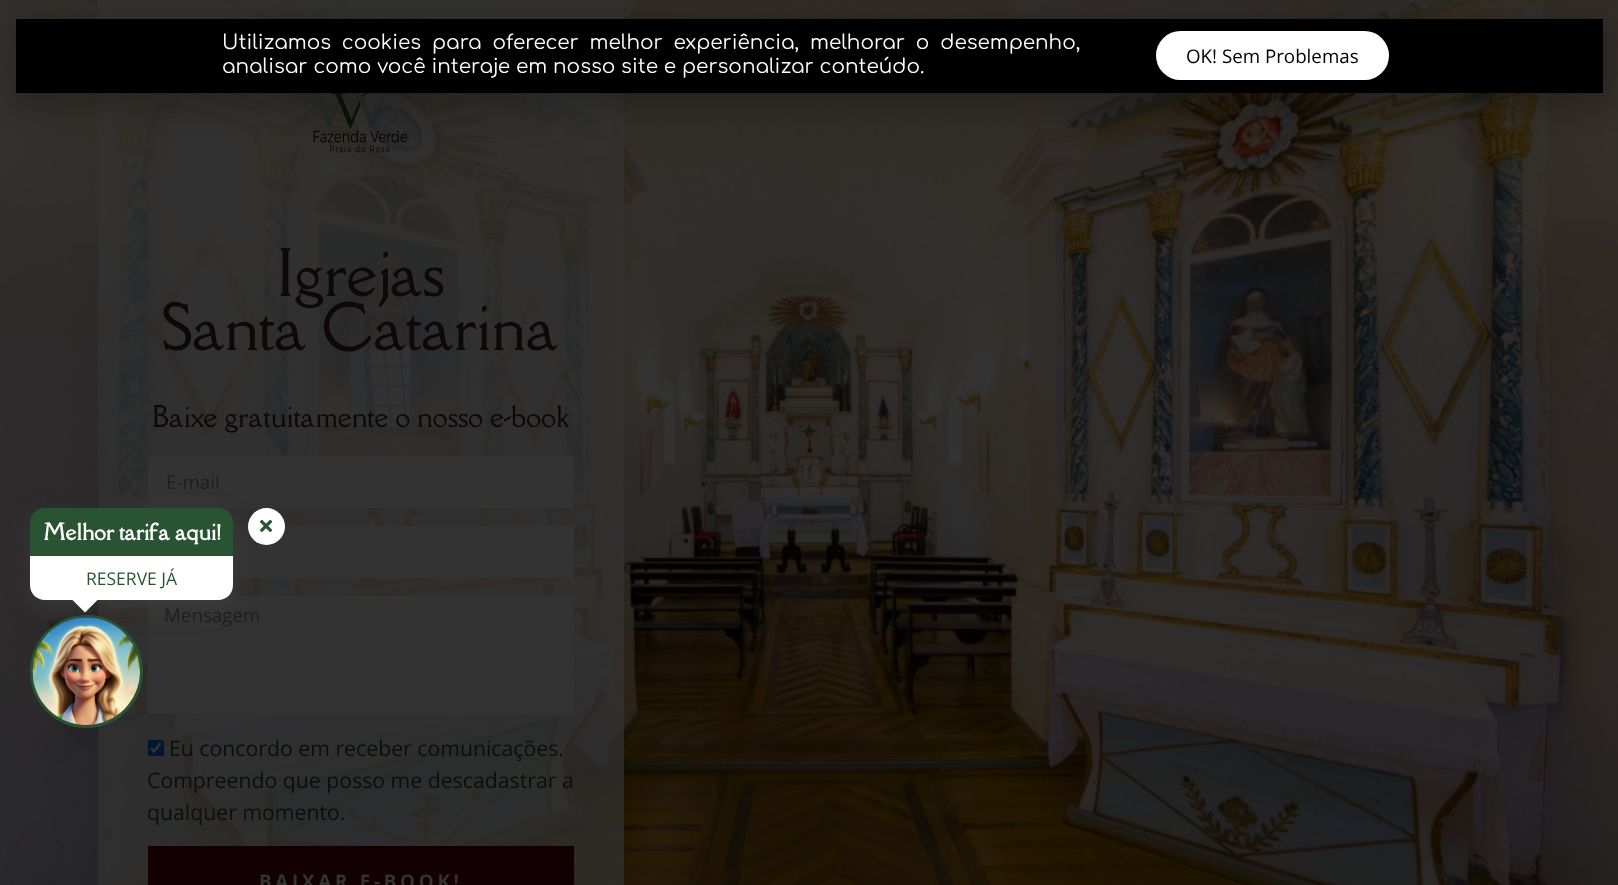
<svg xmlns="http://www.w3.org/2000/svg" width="1618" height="885">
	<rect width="100%" height="100%" fill="#FFFFFF" />
	<image x="0" y="0" width="1618" height="885" href="assets/img3.png" />
	<rect x="98" y="0" width="526" height="885" fill="#333333" fill-opacity="0.73" />
	<image x="313" y="130" width="95" height="23" href="assets/img4.png" />
	<rect x="15" y="25" width="1594" height="81" fill="#000000" fill-opacity="0.2" filter="blur(14.5px)" />
	<text x="310" y="127" font-family="Liberation Serif" font-size="53" letter-spacing="23" fill="#202722">V</text>
	<text x="331" y="127" font-family="Liberation Serif" font-size="53" letter-spacing="23" fill="#08110A">V</text>
	<text x="352" y="127" font-family="Liberation Serif" font-size="53" letter-spacing="23" fill="#202722">V</text>
	<rect x="16" y="19" width="1587" height="74" fill="#000000" />
	<g font-family="Comfortaa" font-size="20" fill="#FFFFFF">
		<text x="222" y="49" word-spacing="5">Utilizamos cookies para oferecer melhor experiência, melhorar o desempenho,</text>
		<text x="222" y="73">analisar como você interaje em nosso site e personalizar conteúdo.</text>
	</g>
	<rect x="1156" y="31" width="233" height="49" rx="24.5" fill="#FFFFFF" />
	<text x="1186" y="63" font-family="Open Sans" font-size="18.75" fill="#000000">OK! Sem Problemas</text>
	<rect x="148" y="456" width="426" height="52" fill="#333333" />
	<rect x="233" y="526" width="341" height="52" fill="#333333" />
	<rect x="148" y="596" width="426" height="118" fill="#333333" />
	<rect x="30" y="516" width="203" height="93" rx="15" fill="#454545" fill-opacity="0.5" filter="blur(10.5px)" />
	<path d="M45 508H218C226.5 508 233 514.5 233 523V556H30V523C30 514.5 36.5 508 45 508Z" fill="#295332" />
	<text x="43" y="540" font-family="Della Respira" font-size="21.25" font-weight="700" fill="#FFFFFF">Melhor tarifa aqui!</text>
	<circle cx="266.5" cy="526.5" r="18.5" fill="#FFFFFF" />
	<image x="260" y="519" width="13" height="13" href="assets/img1.png" />
	<path d="M30 556H233V585C233 593.5 226.5 600 218 600H45C36.5 600 30 593.5 30 585Z" fill="#FFFFFF" />
	<text x="86" y="585" font-family="Open Sans" font-size="17.5" fill="#295332">RESERVE JÁ</text>
	<path d="M72.5 600H97.5L85 612.5Z" fill="#FFFFFF" />
	<circle cx="86.5" cy="671.5" r="55" fill="none" stroke="#295332" stroke-width="3" />
	<image x="32" y="617" width="108" height="108" href="assets/img2.png" />
	<g font-family="Della Respira" font-size="60" fill="#0D0809">
		<text x="277" y="296">Igrejas</text>
		<text x="162" y="350">Santa Catarina</text>
	</g>
	<text x="152" y="427" font-family="Della Respira" font-size="27.5" fill="#0D0809">Baixe gratuitamente o nosso e-book</text>
	<g font-family="Open Sans" font-size="18.75" fill="#1E1F20">
		<text x="166" y="489">E-mail</text>
		<text x="164" y="622">Mensagem</text>
	</g>
	<rect x="148" y="740" width="16" height="16" rx="2.5" fill="#001733" />
	<path d="M151 748L154 751.5L160.5 743" fill="none" stroke="#333333" stroke-width="2.6" />
	<g font-family="Open Sans" font-size="21.25" fill="#08110A">
		<text x="169" y="756">Eu concordo em receber comunicações.</text>
		<text x="147" y="788">Compreendo que posso me descadastrar a</text>
		<text x="147" y="820">qualquer momento.</text>
	</g>
	<rect x="148" y="846" width="426" height="39" fill="#120003" />
	<text x="259" y="888" font-family="Open Sans" font-size="18.75" font-weight="700" letter-spacing="3.75" fill="#333333">BAIXAR E-BOOK!</text>
</svg>
